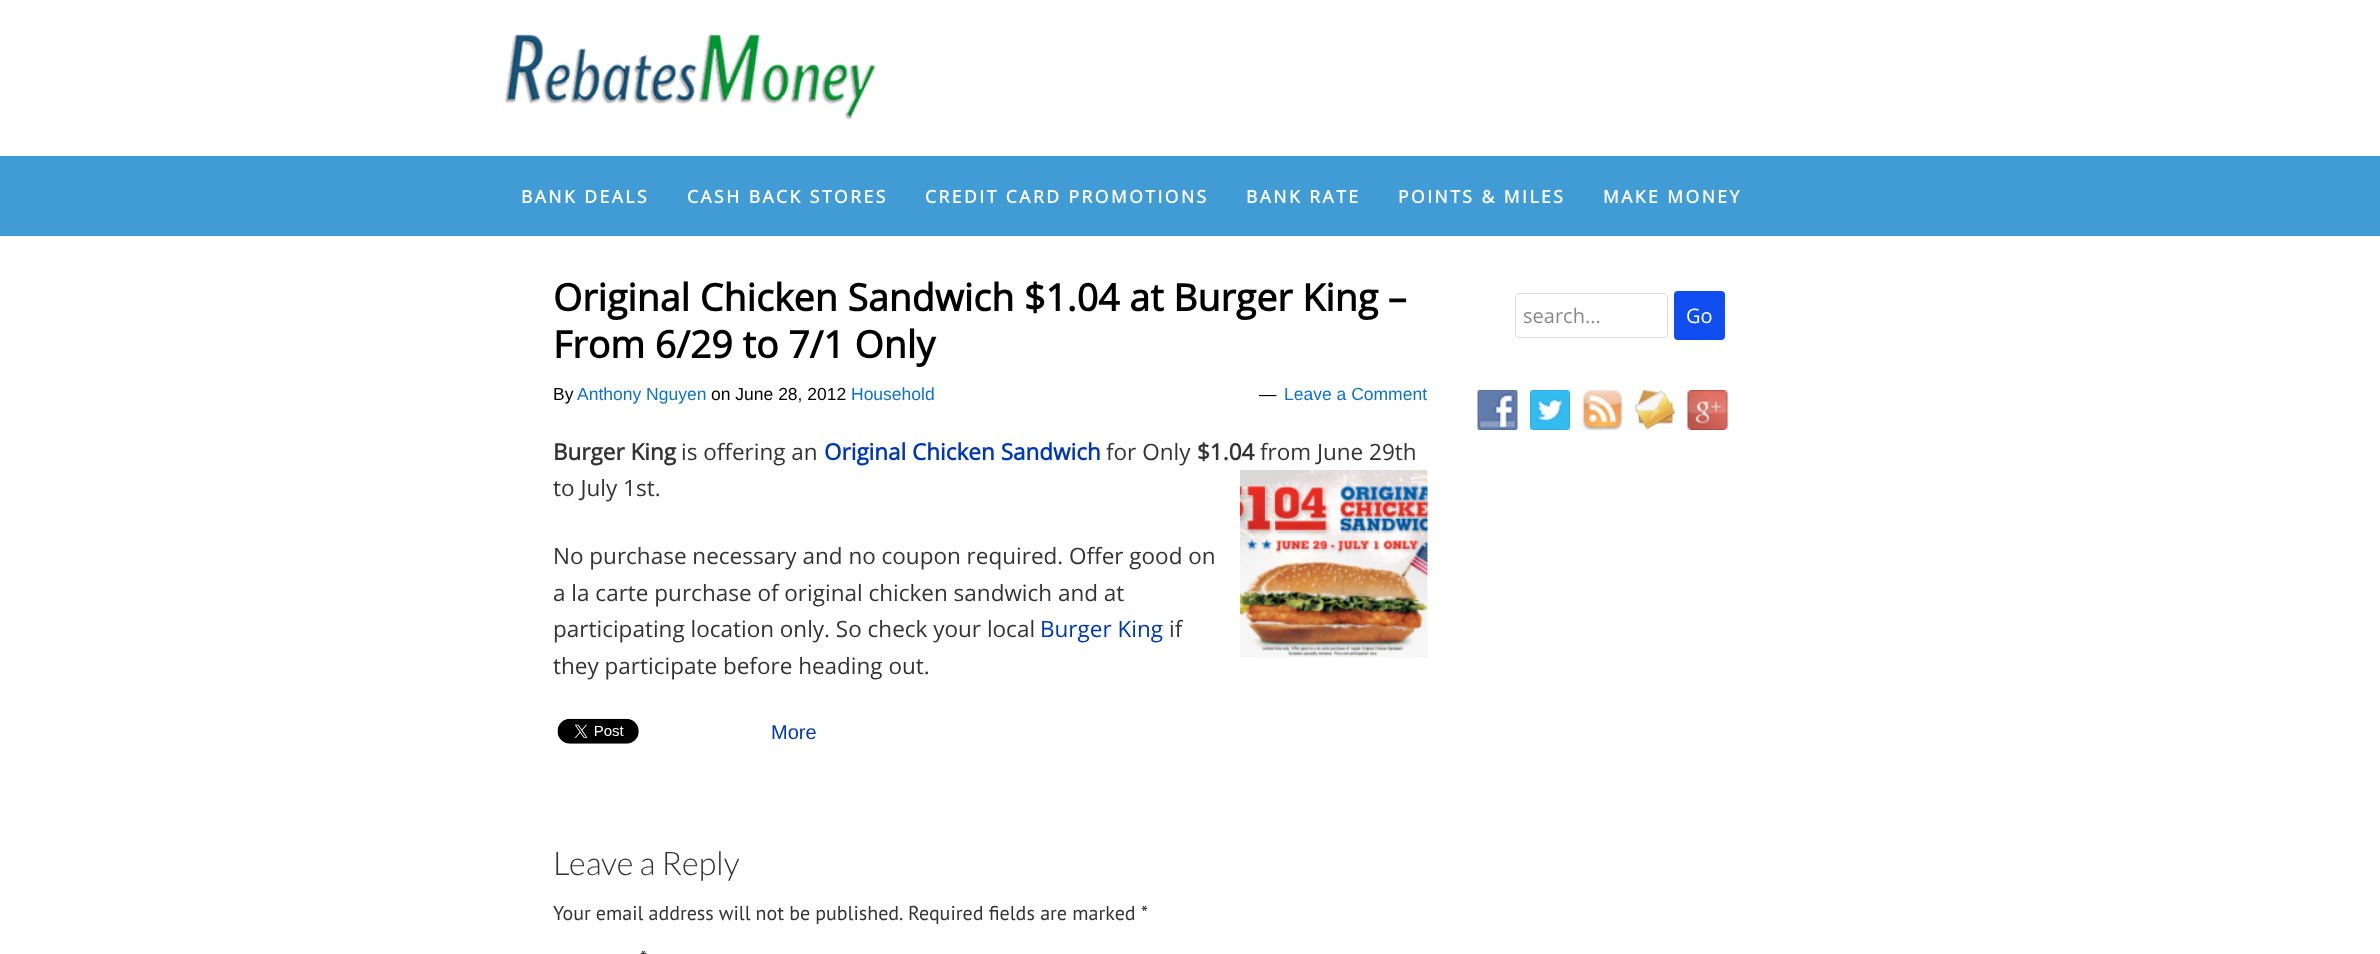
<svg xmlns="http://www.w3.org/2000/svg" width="2380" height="954">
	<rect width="100%" height="100%" fill="#FFFFFF" />
	<image x="504" y="33" width="372" height="87" href="assets/img1.png" />
	<rect x="0" y="156" width="2380" height="80" fill="#419CD6" />
	<g font-family="Open Sans" font-size="17.5" font-weight="700" letter-spacing="2.5" fill="#FFFFFF">
		<text x="521" y="203">BANK DEALS</text>
		<text x="687" y="203">CASH BACK STORES</text>
		<text x="925" y="203">CREDIT CARD PROMOTIONS</text>
		<text x="1246" y="203">BANK RATE</text>
		<text x="1398" y="203">POINTS &amp; MILES</text>
		<text x="1603" y="203">MAKE MONEY</text>
	</g>
	<g font-family="Open Sans" font-size="37.5" font-weight="700" fill="#000000">
		<text x="553" y="311">Original Chicken Sandwich $1.04 at Burger King –</text>
		<text x="553" y="358">From 6/29 to 7/1 Only</text>
	</g>
	<text x="553" y="400" font-family="Liberation Sans" font-size="17.5" fill="#000000">By</text>
	<text x="577" y="400" font-family="Liberation Sans" font-size="17.5" fill="#0D72C7">Anthony Nguyen</text>
	<text x="711" y="400" font-family="Liberation Sans" font-size="17.5" fill="#000000">on June 28, 2012</text>
	<text x="851" y="400" font-family="Liberation Sans" font-size="17.5" fill="#0D72C7">Household</text>
	<text x="1259" y="400" font-family="Liberation Sans" font-size="17.5" fill="#000000">—</text>
	<text x="1284" y="400" font-family="Liberation Sans" font-size="17.5" fill="#0D72C7">Leave a Comment</text>
	<text x="553" y="460" font-family="Open Sans" font-size="22.5" font-weight="700" fill="#333333">Burger King</text>
	<text x="681" y="460" font-family="Open Sans" font-size="22.5" fill="#333333">is offering an</text>
	<text x="824" y="460" font-family="Open Sans" font-size="22.5" font-weight="700" fill="#0037B4">Original Chicken Sandwich</text>
	<text x="1106" y="460" font-family="Open Sans" font-size="22.5" fill="#333333">for Only</text>
	<text x="1197" y="460" font-family="Open Sans" font-size="22.5" font-weight="700" fill="#333333">$1.04</text>
	<g font-family="Open Sans" font-size="22.5" fill="#333333">
		<text x="1260" y="460">from June 29th</text>
		<text x="553" y="496">to July 1st.</text>
	</g>
	<image x="1240" y="470" width="188" height="188" href="assets/img2.png" />
	<g font-family="Open Sans" font-size="22.5" fill="#333333">
		<text x="553" y="564">No purchase necessary and no coupon required. Offer good on</text>
		<text x="553" y="601">a la carte purchase of original chicken sandwich and at</text>
		<text x="553" y="637">participating location only. So check your local</text>
	</g>
	<text x="1040" y="637" font-family="Open Sans" font-size="22.5" fill="#0037B4">Burger King</text>
	<g font-family="Open Sans" font-size="22.5" fill="#333333">
		<text x="1169" y="637">if</text>
		<text x="553" y="674">they participate before heading out.</text>
	</g>
	<image x="557" y="718" width="82" height="26" href="assets/img3.png" />
	<text x="771" y="739" font-family="Liberation Sans" font-size="20" fill="#0037B4">More</text>
	<text x="553" y="875" font-family="Lato" font-size="32.5" font-weight="300" fill="#333333">Leave a Reply</text>
	<g font-family="PT Sans" font-size="20" fill="#333333">
		<text x="553" y="920" word-spacing="-0.25">Your email address will not be published.</text>
		<text x="908" y="920">Required fields are marked *</text>
		<text x="640" y="965">*</text>
	</g>
	<rect x="1515.5" y="293.5" width="152" height="44" rx="3.5" fill="none" stroke="#DDDDDD" />
	<text x="1523" y="323" font-family="Open Sans" font-size="20" fill="#888888">search...</text>
	<rect x="1674" y="291" width="51" height="49" rx="4" fill="#0F4DF0" />
	<text x="1686" y="323" font-family="Open Sans" font-size="20" fill="#FFFFFF">Go</text>
	<image x="1477" y="390" width="41" height="40" href="assets/img4.png" />
	<image x="1530" y="390" width="40" height="40" href="assets/img5.png" />
	<image x="1582" y="390" width="41" height="40" href="assets/img6.png" />
	<image x="1635" y="390" width="40" height="40" href="assets/img7.png" />
	<image x="1687" y="390" width="41" height="40" href="assets/img8.png" />
</svg>
